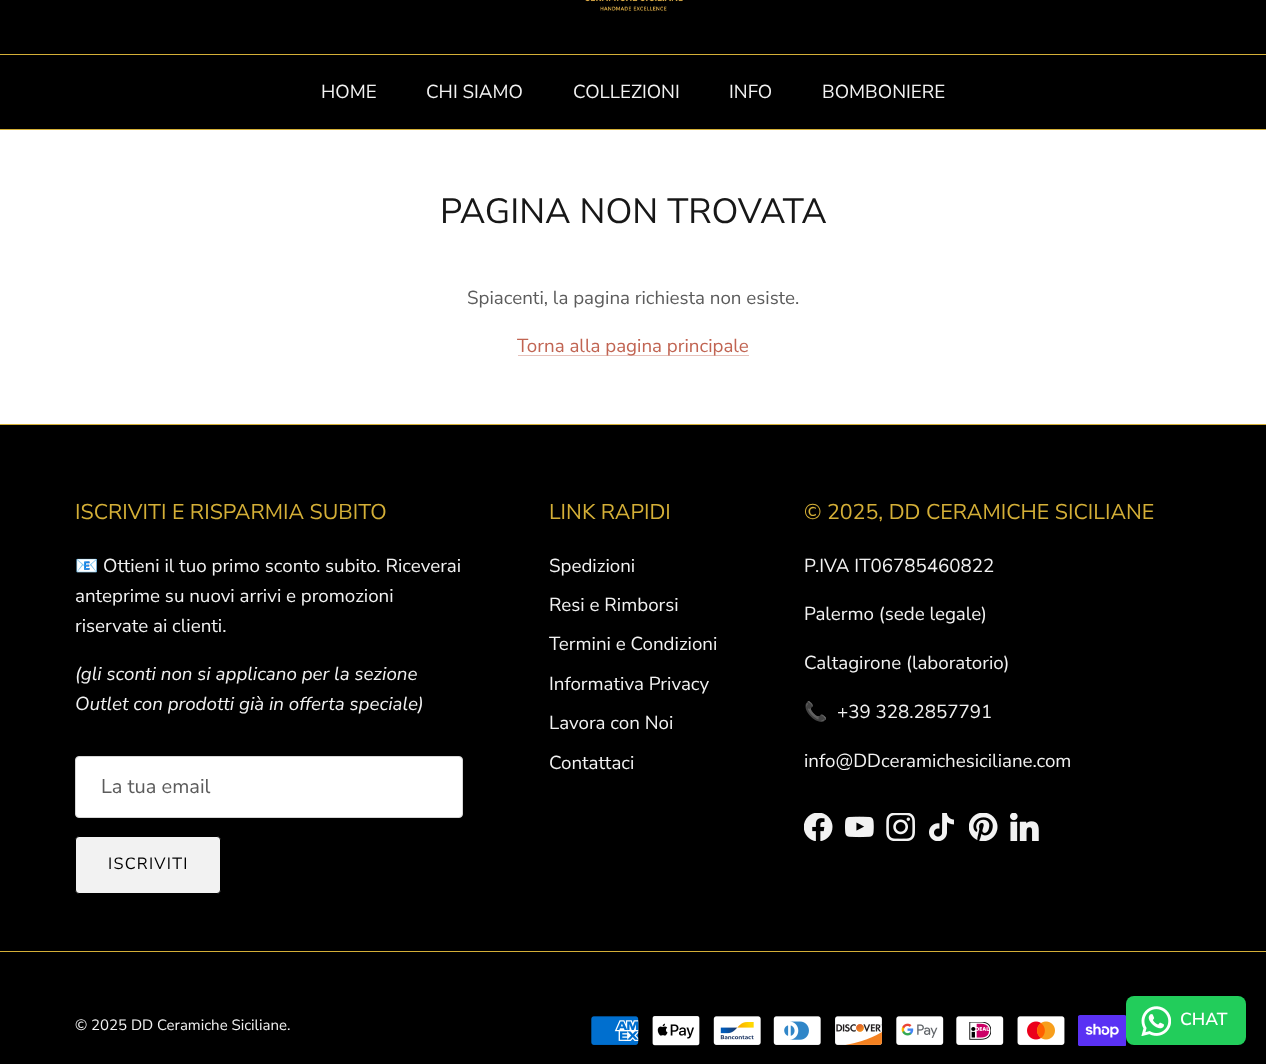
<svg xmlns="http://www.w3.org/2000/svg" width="1266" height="1064">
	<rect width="100%" height="100%" fill="#FFFFFF" />
	<rect x="0" y="0" width="1266" height="54" fill="#000000" />
	<rect x="0" y="54" width="1266" height="1" fill="#D4AF37" />
	<image x="585" y="0" width="98" height="11" href="assets/img1.png" />
	<rect x="0" y="129" width="1266" height="1" fill="#D4AF37" />
	<rect x="0" y="55" width="1266" height="74" fill="#000000" />
	<g font-family="Nunito Sans" font-size="18.75" fill="#F2F2F2">
		<text x="321" y="98">HOME</text>
		<text x="426" y="98">CHI SIAMO</text>
		<text x="573" y="98">COLLEZIONI</text>
		<text x="729" y="98">INFO</text>
		<text x="822" y="98">BOMBONIERE</text>
	</g>
	<text x="440" y="223" font-family="Nunito Sans" font-size="35" fill="#171717">PAGINA NON TROVATA</text>
	<text x="467" y="304" font-family="Nunito Sans" font-size="18.75" fill="#5C5C5C">Spiacenti, la pagina richiesta non esiste.</text>
	<rect x="518" y="355" width="231" height="1" fill="#E6C1BA" />
	<text x="517" y="352" font-family="Nunito Sans" font-size="18.75" fill="#C16452">Torna alla pagina principale</text>
	<rect x="0" y="425" width="1266" height="639" fill="#000000" />
	<rect x="0" y="424" width="1266" height="1" fill="#D4AF37" />
	<text x="75" y="519" font-family="Nunito Sans" font-size="21.4" fill="#D4AF37">ISCRIVITI E RISPARMIA SUBITO</text>
	<text x="75" y="572" font-family="Noto Color Emoji" font-size="18.75" fill="#F2F2F2">📧</text>
	<g font-family="Nunito Sans" font-size="18.75" fill="#F2F2F2">
		<text x="103" y="572">Ottieni il tuo primo sconto subito. Riceverai</text>
		<text x="75" y="602">anteprime su nuovi arrivi e promozioni</text>
		<text x="75" y="632">riservate ai clienti.</text>
	</g>
	<g font-family="Nunito Sans" font-size="18.75" font-style="italic" fill="#F2F2F2">
		<text x="75" y="680">(gli sconti non si applicano per la sezione</text>
		<text x="75" y="710">Outlet con prodotti già in offerta speciale)</text>
	</g>
	<rect x="75.5" y="756.5" width="387" height="61" rx="3.5" fill="#FFFFFF" stroke="#D6D6D6" />
	<text x="101" y="793" font-family="Nunito Sans" font-size="20" fill="#5C5C5C">La tua email</text>
	<rect x="75.5" y="836.5" width="145" height="57" rx="3.5" fill="#F2F2F2" stroke="#000000" />
	<text x="108" y="869" font-family="Nunito Sans" font-size="16.25" letter-spacing="1.25" fill="#000000">ISCRIVITI</text>
	<text x="549" y="519" font-family="Nunito Sans" font-size="21.4" fill="#D4AF37">LINK RAPIDI</text>
	<g font-family="Nunito Sans" font-size="18.75" fill="#F2F2F2">
		<text x="549" y="572">Spedizioni</text>
		<text x="549" y="611">Resi e Rimborsi</text>
		<text x="549" y="650">Termini e Condizioni</text>
		<text x="549" y="690">Informativa Privacy</text>
		<text x="549" y="729">Lavora con Noi</text>
		<text x="549" y="769">Contattaci</text>
	</g>
	<text x="804" y="519" font-family="Nunito Sans" font-size="21.4" fill="#D4AF37">© 2025, DD CERAMICHE SICILIANE</text>
	<g font-family="Nunito Sans" font-size="18.75" fill="#F2F2F2">
		<text x="804" y="572">P.IVA IT06785460822</text>
		<text x="804" y="620">Palermo (sede legale)</text>
		<text x="804" y="669">Caltagirone (laboratorio)</text>
	</g>
	<text x="804" y="718" font-family="Noto Color Emoji" font-size="18.75" fill="#F2F2F2">📞</text>
	<g font-family="Nunito Sans" font-size="18.75" fill="#F2F2F2">
		<text x="837" y="718">+39 328.2857791</text>
		<text x="804" y="767">info@DDceramichesiciliane.com</text>
	</g>
	<image x="804" y="813" width="29" height="28" href="assets/img2.png" />
	<image x="845" y="816" width="29" height="22" href="assets/img3.png" />
	<image x="886" y="813" width="29" height="28" href="assets/img4.png" />
	<image x="929" y="813" width="25" height="28" href="assets/img5.png" />
	<image x="969" y="813" width="29" height="28" href="assets/img6.png" />
	<image x="1010" y="813" width="29" height="28" href="assets/img7.png" />
	<rect x="0" y="951" width="1266" height="1" fill="#D4AF37" />
	<text x="75" y="1030" font-family="Nunito Sans" font-size="15" fill="#F2F2F2">© 2025 DD Ceramiche Siciliane.</text>
	<image x="591" y="1016" width="48" height="29" href="assets/img8.png" />
	<image x="652" y="1016" width="48" height="30" href="assets/img9.png" />
	<image x="713" y="1016" width="48" height="29" href="assets/img10.png" />
	<image x="773" y="1016" width="48" height="29" href="assets/img11.png" />
	<image x="835" y="1016" width="47" height="29" href="assets/img12.png" />
	<image x="896" y="1016" width="48" height="29" href="assets/img13.png" />
	<image x="956" y="1016" width="48" height="29" href="assets/img14.png" />
	<image x="1017" y="1016" width="48" height="29" href="assets/img15.png" />
	<image x="1078" y="1015" width="48" height="31" href="assets/img16.png" />
	<rect x="1126" y="996" width="120" height="49" rx="8" fill="#22CD5B" />
	<image x="1141" y="1006" width="30" height="30" href="assets/img17.png" />
	<text x="1180" y="1025" font-family="Nunito Sans" font-size="17.5" font-weight="600" fill="#FFFFFF">CHAT</text>
</svg>
